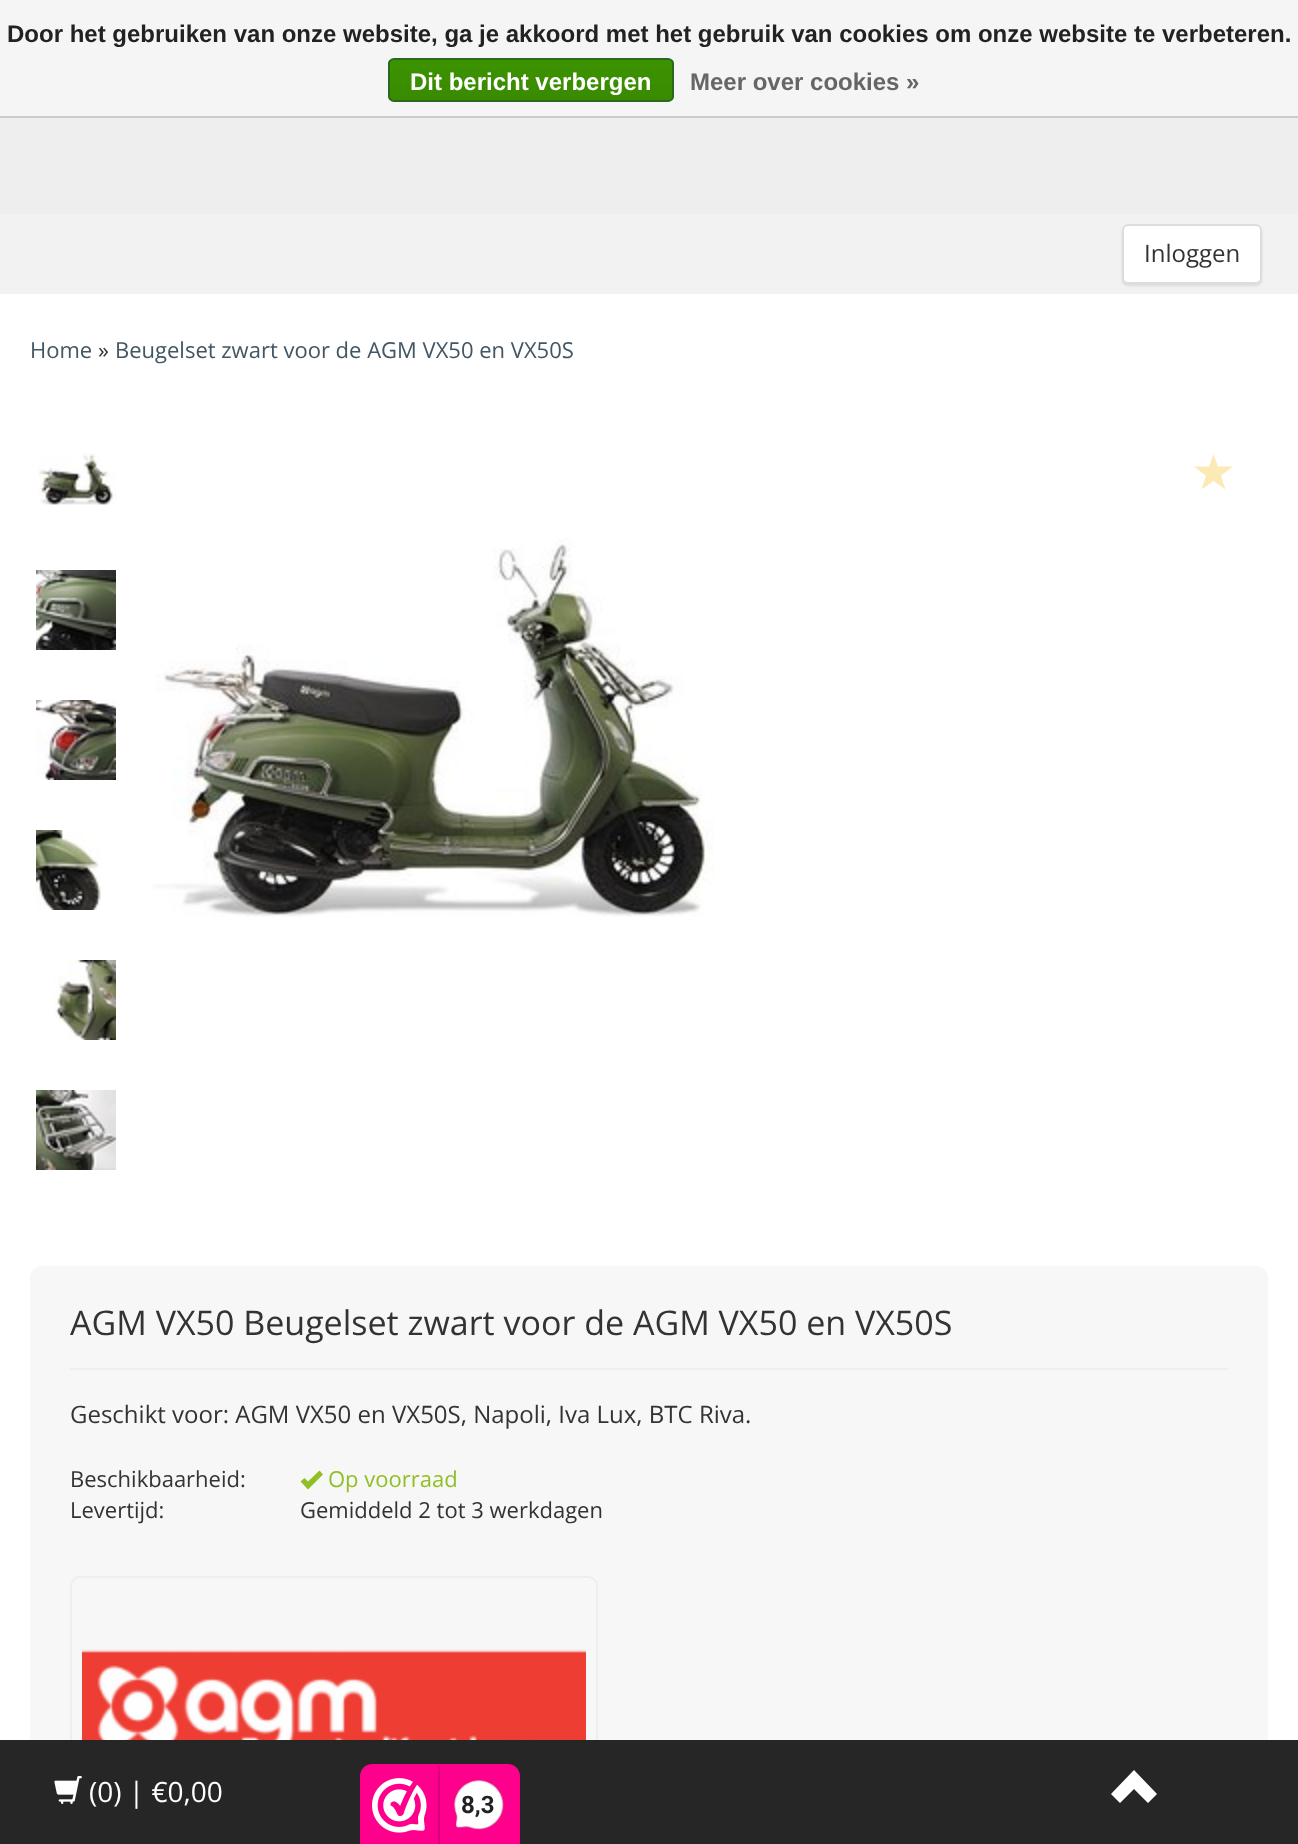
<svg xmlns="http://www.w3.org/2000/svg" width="1298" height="1844">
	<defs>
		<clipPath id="clip1"><rect x="388" y="58" width="286" height="44" rx="6" /></clipPath>
		<linearGradient id="g1" gradientUnits="userSpaceOnUse" x1="531" y1="60" x2="531" y2="100"><stop offset="0" stop-color="#3C9300" /><stop offset="1" stop-color="#398A00" /></linearGradient>
	</defs>
	<rect width="100%" height="100%" fill="#FFFFFF" />
	<rect x="0" y="0" width="1298" height="116" fill="#F5F5F5" />
	<rect x="0" y="116" width="1298" height="2" fill="#CCCCCC" />
	<text x="7" y="42" font-family="Liberation Sans" font-size="24" font-weight="700" fill="#222222">Door het gebruiken van onze website, ga je akkoord met het gebruik van cookies om onze website te verbeteren.</text>
	<g clip-path="url(#clip1)">
		<rect x="388" y="60" width="286" height="40" fill="url(#g1)" />
	</g>
	<rect x="389" y="59" width="284" height="42" rx="5" fill="none" stroke="#29691D" stroke-width="2" />
	<text x="410" y="90" font-family="Liberation Sans" font-size="24" font-weight="700" fill="#FFFFFF">Dit bericht verbergen</text>
	<text x="690" y="90" font-family="Liberation Sans" font-size="24" font-weight="700" fill="#666666">Meer over cookies »</text>
	<rect x="0" y="118" width="1298" height="96" fill="#EEEEEE" />
	<rect x="0" y="214" width="1298" height="80" fill="#F2F2F2" />
	<rect x="1122" y="226" width="140" height="60" rx="6" fill="#221919" fill-opacity="0.1" filter="blur(1px)" />
	<rect x="1123" y="225" width="138" height="58" rx="5" fill="#FFFFFF" stroke="#DDDDDD" stroke-width="2" />
	<text x="1144" y="262" font-family="Open Sans" font-size="24" fill="#333333">Inloggen</text>
	<text x="30" y="358" font-family="Open Sans" font-size="22" fill="#425663">Home</text>
	<text x="98" y="358" font-family="Open Sans" font-size="22" fill="#333333">»</text>
	<text x="115" y="358" font-family="Open Sans" font-size="22" fill="#425663">Beugelset zwart voor de AGM VX50 en VX50S</text>
	<image x="38" y="453" width="78" height="52" href="assets/img1.png" />
	<image x="36" y="570" width="80" height="80" href="assets/img2.png" />
	<image x="36" y="700" width="80" height="80" href="assets/img3.png" />
	<image x="36" y="830" width="65" height="80" href="assets/img4.png" />
	<image x="54" y="960" width="62" height="80" href="assets/img5.png" />
	<image x="36" y="1090" width="80" height="80" href="assets/img6.png" />
	<path d="M1193.5 466.5H1209L1213.5 454L1218 466.5H1233L1221 475.5L1225.5 489.5L1213.5 481L1201.5 489.5L1206 475.5ZM1201.5 490H1201.5Z" fill="#FCEAB6" />
	<image x="152" y="537" width="562" height="380" href="assets/img7.png" />
	<rect x="30" y="1266" width="1238" height="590" rx="12" fill="#F7F7F7" />
	<rect x="70" y="1368" width="1158" height="2" fill="#EEEEEE" />
	<text x="70" y="1335" font-family="Open Sans" font-size="34" fill="#333333">AGM VX50 Beugelset zwart voor de AGM VX50 en VX50S</text>
	<text x="70" y="1423" font-family="Open Sans" font-size="24" fill="#333333">Geschikt voor: AGM VX50 en VX50S, Napoli, Iva Lux, BTC Riva.</text>
	<text x="70" y="1487" font-family="Open Sans" font-size="22" fill="#333333">Beschikbaarheid:</text>
	<path d="M300.5 1481.5L308 1489.5L323 1474.5L319.5 1470.5L308 1481.5L304.5 1478Z" fill="#90BF26" />
	<text x="328" y="1487" font-family="Open Sans" font-size="22" fill="#90BF26">Op voorraad</text>
	<g font-family="Open Sans" font-size="22" fill="#333333">
		<text x="70" y="1518">Levertijd:</text>
		<text x="300" y="1518">Gemiddeld 2 tot 3 werkdagen</text>
	</g>
	<rect x="71" y="1577" width="526" height="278" rx="9" fill="none" stroke="#EEEEEE" stroke-width="2" />
	<image x="82" y="1649" width="504" height="91" href="assets/img8.png" />
	<rect x="0" y="1740" width="1298" height="104" fill="#262626" />
	<image x="54" y="1776" width="28" height="28" href="assets/img9.png" />
	<text x="89" y="1802" font-family="Open Sans" font-size="28" fill="#FFFFFF">(0) | €0,00</text>
	<path d="M1111 1794L1120 1803L1134 1789L1148 1803L1157 1794L1134 1770Z" fill="#FFFFFF" />
	<path d="M372 1764H508C514.5 1764 520 1769.5 520 1776V1844H360V1776C360 1769.5 365.5 1764 372 1764Z" fill="#FE008C" />
	<image x="372" y="1778" width="55" height="55" href="assets/img10.png" />
	<rect x="438" y="1766" width="2" height="78" fill="#D80077" />
	<image x="454" y="1780" width="50" height="50" href="assets/img11.png" />
	<text x="461" y="1813" font-family="Roboto" font-size="24" font-weight="700" fill="#222222">8,3</text>
</svg>
